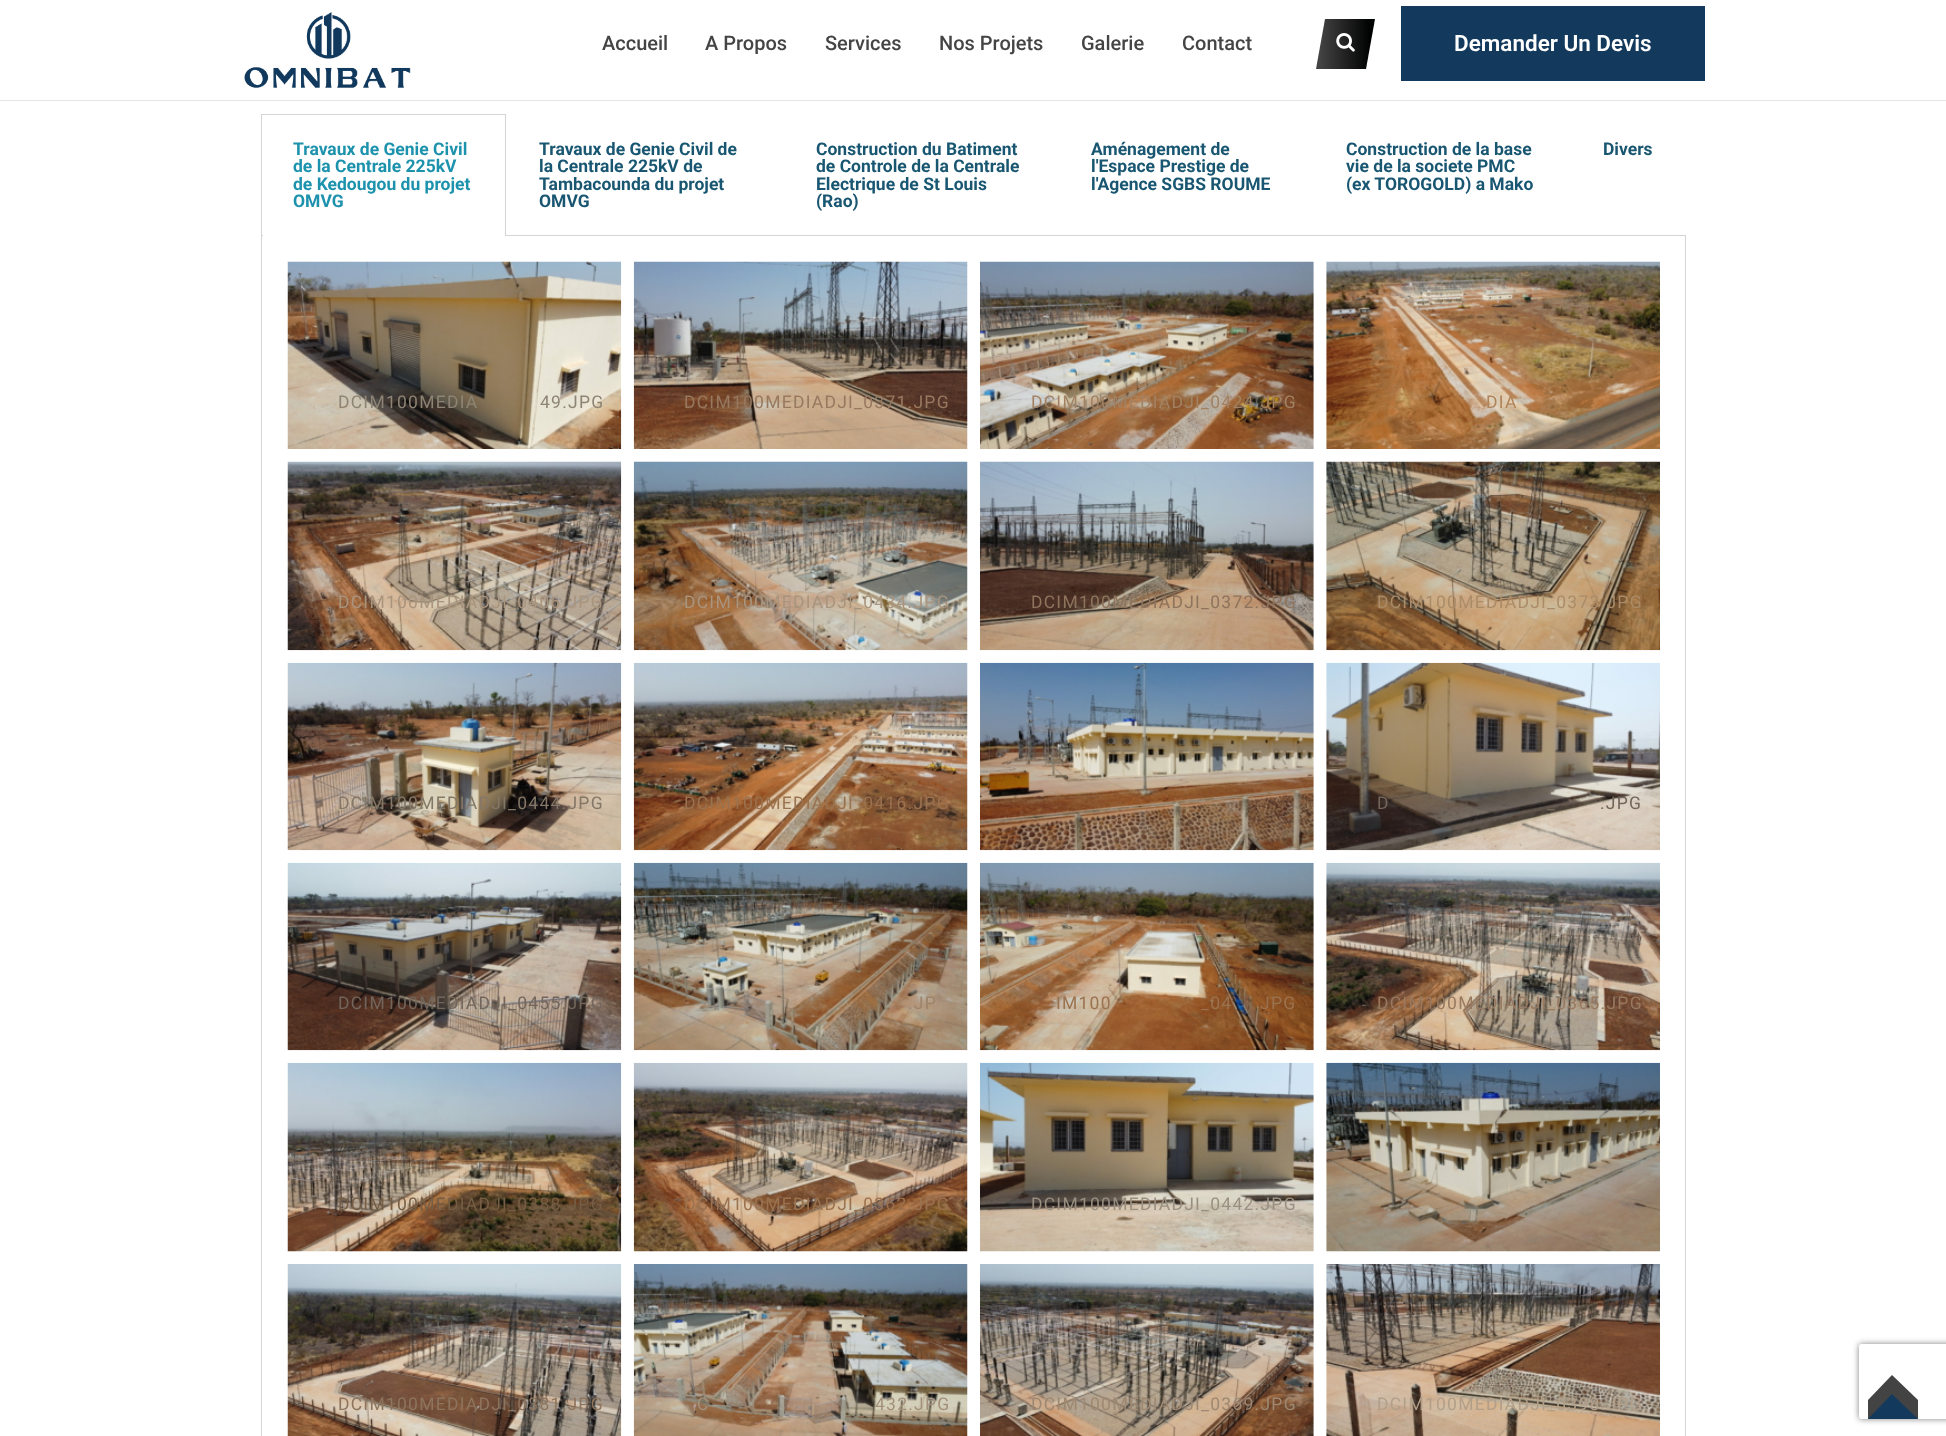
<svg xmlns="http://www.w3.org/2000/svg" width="1946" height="1436">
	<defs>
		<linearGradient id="g1" gradientUnits="userSpaceOnUse" x1="1320" y1="44" x2="1370" y2="44"><stop offset="0" stop-color="#444344" /><stop offset="1" stop-color="#000101" /></linearGradient>
		<clipPath id="clip1"><path d="M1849 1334H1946V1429H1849ZM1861.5 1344H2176.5C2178 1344 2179 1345 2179 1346.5V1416.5C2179 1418 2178 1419 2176.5 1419H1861.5C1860 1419 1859 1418 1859 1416.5V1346.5C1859 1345 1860 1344 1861.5 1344Z" clip-rule="evenodd" /></clipPath>
	</defs>
	<rect width="100%" height="100%" fill="#FFFFFF" />
	<rect x="0" y="100" width="1946" height="1" fill="#E6E6E6" />
	<image x="244" y="12" width="167" height="76" href="assets/img1.png" />
	<g font-family="Roboto" font-size="20" font-weight="500" fill="#444444">
		<text x="602" y="50">Accueil</text>
		<text x="705" y="50">A Propos</text>
		<text x="825" y="50">Services</text>
		<text x="939" y="50">Nos Projets</text>
		<text x="1081" y="50">Galerie</text>
		<text x="1182" y="50">Contact</text>
	</g>
	<path d="M1325 19H1375L1366 69H1316Z" fill="url(#g1)" />
	<image x="1336" y="33" width="19" height="19" href="assets/img2.png" />
	<rect x="1401" y="6" width="304" height="75" fill="#13395D" />
	<text x="1454" y="51" font-family="Roboto" font-size="22.5" font-weight="600" fill="#FFFFFF">Demander Un Devis</text>
	<rect x="261" y="114" width="245" height="1" fill="#D4D4D4" />
	<rect x="505" y="114" width="1" height="122" fill="#D4D4D4" />
	<rect x="261" y="114" width="1" height="122" fill="#D4D4D4" />
	<g font-family="Roboto" font-size="17.5" font-weight="700" fill="#1C92AD">
		<text x="293" y="155">Travaux de Genie Civil</text>
		<text x="293" y="172">de la Centrale 225kV</text>
		<text x="293" y="190">de Kedougou du projet</text>
		<text x="293" y="207">OMVG</text>
	</g>
	<rect x="261" y="235" width="2" height="1" fill="#D4D4D4" />
	<rect x="505" y="235" width="1181" height="1" fill="#D4D4D4" />
	<g font-family="Roboto" font-size="17.5" font-weight="700" fill="#185671">
		<text x="539" y="155">Travaux de Genie Civil de</text>
		<text x="539" y="172">la Centrale 225kV de</text>
		<text x="539" y="190">Tambacounda du projet</text>
		<text x="539" y="207">OMVG</text>
		<text x="816" y="155">Construction du Batiment</text>
		<text x="816" y="172">de Controle de la Centrale</text>
		<text x="816" y="190">Electrique de St Louis</text>
		<text x="816" y="207">(Rao)</text>
		<text x="1091" y="155">Aménagement de</text>
		<text x="1091" y="172">l'Espace Prestige de</text>
		<text x="1091" y="190">l'Agence SGBS ROUME</text>
		<text x="1346" y="155">Construction de la base</text>
		<text x="1346" y="172">vie de la societe PMC</text>
		<text x="1346" y="190">(ex TOROGOLD) a Mako</text>
		<text x="1603" y="155">Divers</text>
	</g>
	<rect x="1685" y="236" width="1" height="1200" fill="#D4D4D4" />
	<rect x="261" y="236" width="1" height="1200" fill="#D4D4D4" />
	<image x="287" y="261" width="335" height="188" href="assets/img3.png" />
	<g font-family="Roboto" font-size="17.5" letter-spacing="1.25" fill="#8D8474">
		<text x="338" y="408">DCIM100MEDIA</text>
		<text x="540" y="408">49.JPG</text>
	</g>
	<image x="633" y="261" width="335" height="188" href="assets/img4.png" />
	<text x="684" y="408" font-family="Roboto" font-size="17.5" letter-spacing="1.25" fill="#987960">DCIM100MEDIADJI_0371.JPG</text>
	<image x="980" y="261" width="334" height="188" href="assets/img5.png" />
	<text x="1031" y="408" font-family="Roboto" font-size="17.5" letter-spacing="1.25" fill="#A28263">DCIM100MEDIADJI_0424.JPG</text>
	<image x="1326" y="261" width="334" height="188" href="assets/img6.png" />
	<text x="1486" y="408" font-family="Roboto" font-size="17.5" letter-spacing="1.25" fill="#AF845A">DIA</text>
	<image x="287" y="461" width="335" height="190" href="assets/img7.png" />
	<text x="338" y="608" font-family="Roboto" font-size="17.5" letter-spacing="1.25" fill="#A9947E">DCIM100MEDIADJI_0406.JPG</text>
	<image x="633" y="461" width="335" height="190" href="assets/img8.png" />
	<text x="684" y="608" font-family="Roboto" font-size="17.5" letter-spacing="1.25" fill="#A9947E">DCIM100MEDIADJI_0434.JPG</text>
	<image x="980" y="461" width="334" height="190" href="assets/img9.png" />
	<text x="1031" y="608" font-family="Roboto" font-size="17.5" letter-spacing="1.25" fill="#8E745D">DCIM100MEDIADJI_0372.JPG</text>
	<image x="1326" y="461" width="334" height="190" href="assets/img10.png" />
	<text x="1377" y="608" font-family="Roboto" font-size="17.5" letter-spacing="1.25" fill="#AB8C68">DCIM100MEDIADJI_0373.JPG</text>
	<image x="287" y="662" width="335" height="189" href="assets/img11.png" />
	<text x="338" y="809" font-family="Roboto" font-size="17.5" letter-spacing="1.25" fill="#847767">DCIM100MEDIADJI_0444.JPG</text>
	<image x="633" y="662" width="335" height="189" href="assets/img12.png" />
	<text x="684" y="809" font-family="Roboto" font-size="17.5" letter-spacing="1.25" fill="#9B724F">DCIM100MEDIADJI_0416.JPG</text>
	<image x="980" y="662" width="334" height="189" href="assets/img13.png" />
	<image x="1326" y="662" width="334" height="189" href="assets/img14.png" />
	<g font-family="Roboto" font-size="17.5" letter-spacing="1.25" fill="#72665C">
		<text x="1377" y="809">D</text>
		<text x="1547" y="809">_</text>
		<text x="1600" y="809">.JPG</text>
	</g>
	<image x="287" y="862" width="335" height="189" href="assets/img15.png" />
	<text x="338" y="1009" font-family="Roboto" font-size="17.5" letter-spacing="1.25" fill="#72665C">DCIM100MEDIADJI_0455.JPG</text>
	<image x="633" y="862" width="335" height="189" href="assets/img16.png" />
	<text x="908" y="1009" font-family="Roboto" font-size="17.5" letter-spacing="1.25" fill="#9C836A">.JP</text>
	<image x="980" y="862" width="334" height="189" href="assets/img17.png" />
	<g font-family="Roboto" font-size="17.5" letter-spacing="1.25" fill="#9B724F">
		<text x="1056" y="1009">IM100</text>
		<text x="1201" y="1009">_04</text>
		<text x="1260" y="1009">JPG</text>
	</g>
	<image x="1326" y="862" width="334" height="189" href="assets/img18.png" />
	<text x="1377" y="1009" font-family="Roboto" font-size="17.5" letter-spacing="1.25" fill="#987960">DCIM100MEDIADJI_0365.JPG</text>
	<image x="287" y="1062" width="335" height="190" href="assets/img19.png" />
	<text x="338" y="1210" font-family="Roboto" font-size="17.5" letter-spacing="1.25" fill="#755E45">DCIM100MEDIADJI_0388.JPG</text>
	<image x="633" y="1062" width="335" height="190" href="assets/img20.png" />
	<text x="684" y="1210" font-family="Roboto" font-size="17.5" letter-spacing="1.25" fill="#9B724F">DCIM100MEDIADJI_0362.JPG</text>
	<image x="980" y="1062" width="334" height="190" href="assets/img21.png" />
	<text x="1031" y="1210" font-family="Roboto" font-size="17.5" letter-spacing="1.25" fill="#9A9082">DCIM100MEDIADJI_0442.JPG</text>
	<image x="1326" y="1062" width="334" height="190" href="assets/img22.png" />
	<image x="287" y="1264" width="335" height="172" href="assets/img23.png" />
	<text x="338" y="1410" font-family="Roboto" font-size="17.5" letter-spacing="1.25" fill="#8E745D">DCIM100MEDIADJI_0381.JPG</text>
	<image x="633" y="1264" width="335" height="172" href="assets/img24.png" />
	<g font-family="Roboto" font-size="17.5" letter-spacing="1.25" fill="#A3917C">
		<text x="697" y="1410">C</text>
		<text x="875" y="1410">432.JPG</text>
	</g>
	<image x="980" y="1264" width="334" height="172" href="assets/img25.png" />
	<text x="1031" y="1410" font-family="Roboto" font-size="17.5" letter-spacing="1.25" fill="#9F8871">DCIM100MEDIADJI_0369.JPG</text>
	<image x="1326" y="1264" width="334" height="172" href="assets/img26.png" />
	<text x="1377" y="1410" font-family="Roboto" font-size="17.5" letter-spacing="1.25" fill="#B29F89">DCIM100MEDIADJI_0398.JPG</text>
	<g clip-path="url(#clip1)">
		<rect x="1859" y="1344" width="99" height="75" rx="2.5" fill="#808080" filter="blur(3px)" />
	</g>
	<rect x="1868" y="1400" width="50" height="19" fill="#434343" />
	<path d="M1918 1400H1868L1892 1375Z" fill="#434343" />
	<path d="M1918 1419H1868L1892 1394Z" fill="#13395D" />
</svg>
